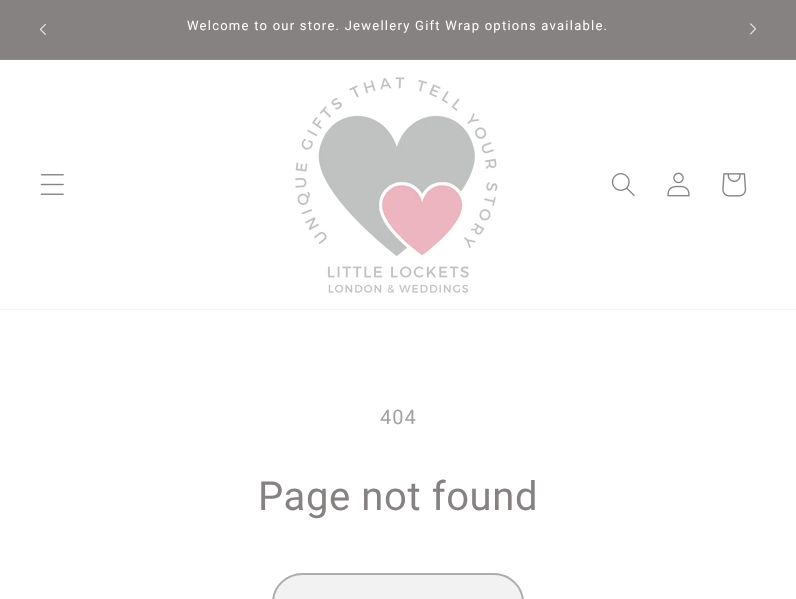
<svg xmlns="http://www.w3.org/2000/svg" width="796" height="599">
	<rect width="100%" height="100%" fill="#FFFFFF" />
	<rect x="0" y="0" width="796" height="59" fill="#868282" />
	<rect x="0" y="59" width="796" height="1" fill="#908C8C" />
	<image x="39" y="23" width="7" height="12" href="assets/img1.png" />
	<text x="187" y="30" font-family="Roboto" font-size="13" letter-spacing="1.25" fill="#FFFFFF">Welcome to our store. Jewellery Gift Wrap options available.</text>
	<image x="750" y="23" width="6" height="12" href="assets/img2.png" />
	<rect x="0" y="309" width="796" height="1" fill="#F5F5F5" />
	<image x="40" y="174" width="24" height="21" href="assets/img3.png" />
	<image x="295" y="77" width="203" height="216" href="assets/img4.png" />
	<image x="611" y="173" width="24" height="24" href="assets/img5.png" />
	<image x="667" y="172" width="23" height="25" href="assets/img6.png" />
	<image x="722" y="173" width="25" height="24" href="assets/img7.png" />
	<text x="380" y="424" font-family="Roboto" font-size="20" letter-spacing="1" fill="#A4A1A1">404</text>
	<text x="258" y="510" font-family="Roboto" font-size="40" letter-spacing="0.6" fill="#868282">Page not found</text>
	<rect x="273" y="574" width="250" height="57" rx="29.5" fill="#F2F2F2" stroke="#F2F2F2" stroke-width="2" />
	<rect x="273" y="574" width="250" height="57" rx="29.5" fill="none" stroke="#A4A0A0" stroke-opacity="0.85" stroke-width="2" />
</svg>
